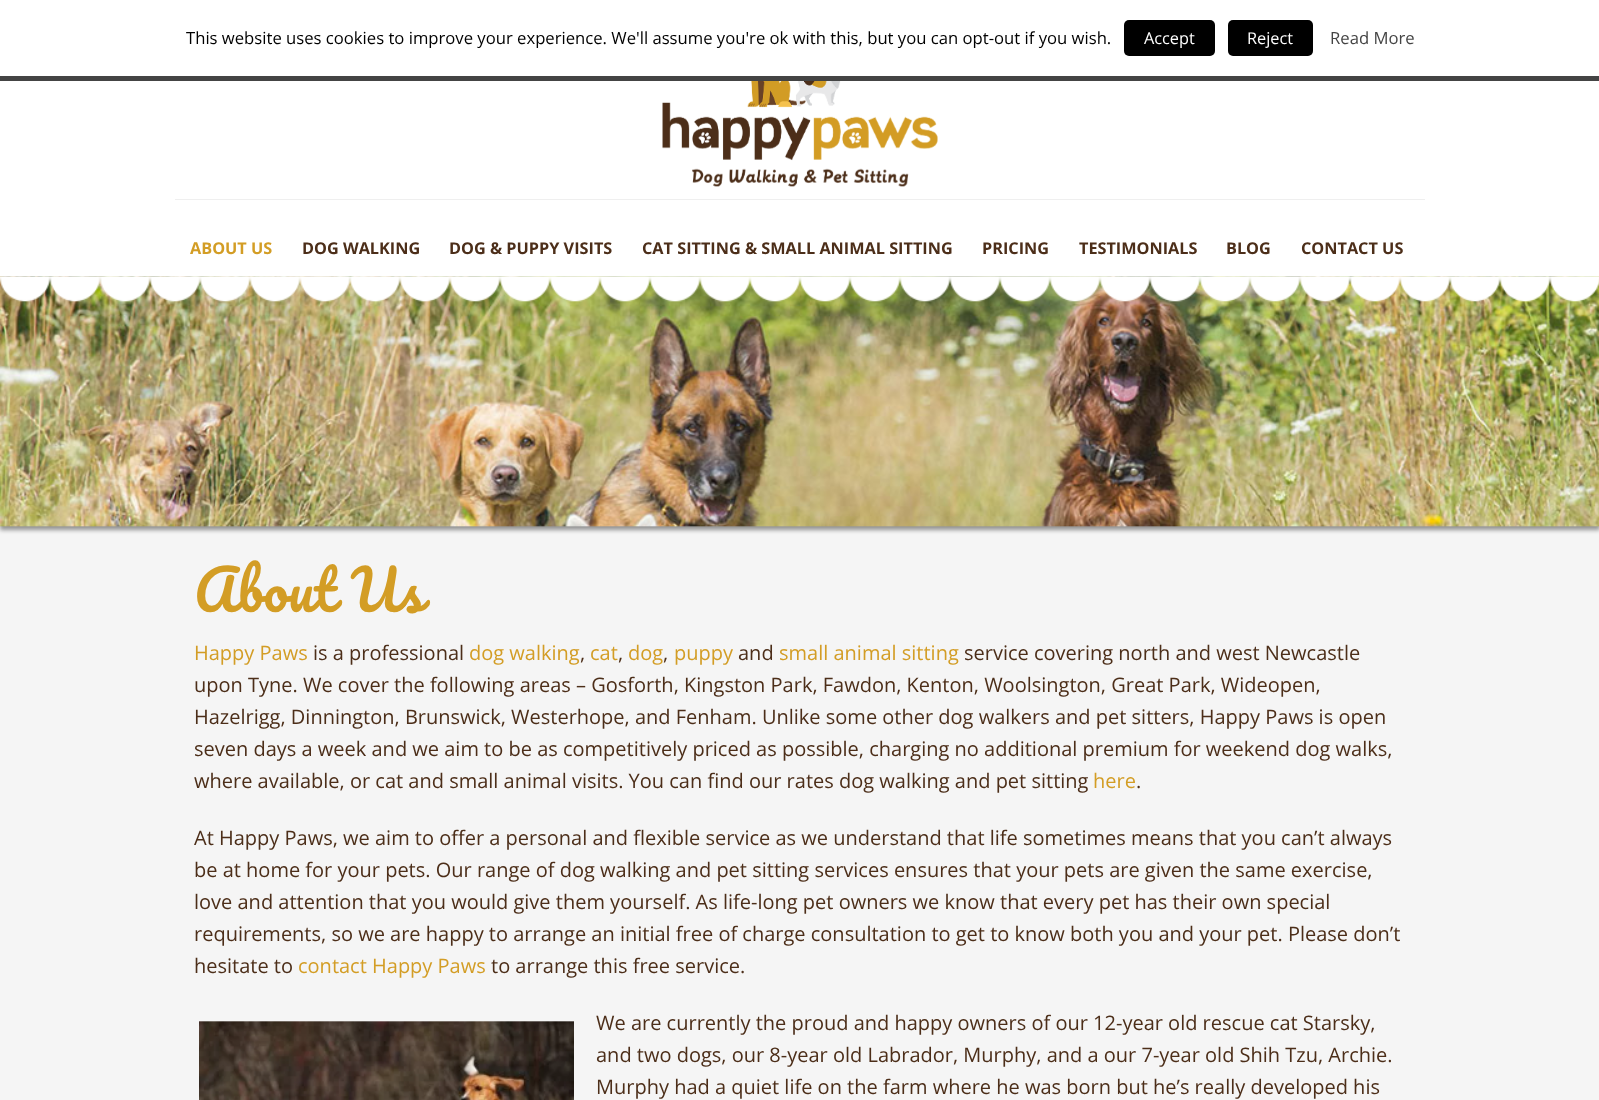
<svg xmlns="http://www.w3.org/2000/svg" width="1599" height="1100">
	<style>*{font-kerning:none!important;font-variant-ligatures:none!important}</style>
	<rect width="100%" height="100%" fill="#F5F5F5" />
	<rect x="0" y="0" width="1599" height="76" fill="#FFFFFF" />
	<rect x="0" y="76" width="1599" height="5" fill="#444444" />
	<text x="186" y="44" font-family="Open Sans" font-size="16.67" fill="#000000">This website uses cookies to improve your experience. We'll assume you're ok with this, but you can opt-out if you wish.</text>
	<rect x="1124" y="20" width="91" height="36" rx="5" fill="#000000" />
	<text x="1144" y="44" font-family="Open Sans" font-size="16.25" fill="#FFFFFF">Accept</text>
	<rect x="1228" y="20" width="85" height="36" rx="5" fill="#000000" />
	<text x="1247" y="44" font-family="Open Sans" font-size="16.25" fill="#FFFFFF">Reject</text>
	<text x="1330" y="44" font-family="Open Sans" font-size="16.67" fill="#444444">Read More</text>
	<rect x="0" y="280" width="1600" height="250" fill="#000000" fill-opacity="0.4" filter="blur(2px)" />
	<image x="0" y="276" width="1599" height="251" href="assets/img3.png" />
	<image x="0" y="276" width="1599" height="26" href="assets/img1.png" />
	<rect x="0" y="81" width="1599" height="195" fill="#FFFFFF" />
	<rect x="175" y="199" width="1250" height="1" fill="#EFEFEF" />
	<image x="662" y="81" width="276" height="106" href="assets/img2.png" />
	<text x="190" y="254" font-family="Open Sans" font-size="16.25" font-weight="700" fill="#D39D25">ABOUT US</text>
	<g font-family="Open Sans" font-size="16.25" font-weight="700" fill="#4C2E19">
		<text x="302" y="254">DOG WALKING</text>
		<text x="449" y="254">DOG &amp; PUPPY VISITS</text>
		<text x="642" y="254">CAT SITTING &amp; SMALL ANIMAL SITTING</text>
		<text x="982" y="254">PRICING</text>
		<text x="1079" y="254">TESTIMONIALS</text>
		<text x="1226" y="254">BLOG</text>
		<text x="1301" y="254">CONTACT US</text>
	</g>
	<text x="194" y="612" word-spacing="1" font-family="Pacifico" font-size="55" fill="#D39D25">About Us</text>
	<text x="194" y="660" font-family="Open Sans" font-size="20" fill="#D39D25">Happy Paws</text>
	<text x="313" y="660" font-family="Open Sans" font-size="20" fill="#4C2E19">is a professional</text>
	<text x="469" y="660" font-family="Open Sans" font-size="20" fill="#D39D25">dog walking</text>
	<text x="580" y="660" font-family="Open Sans" font-size="20" fill="#4C2E19">,</text>
	<text x="590" y="660" font-family="Open Sans" font-size="20" fill="#D39D25">cat</text>
	<text x="618" y="660" font-family="Open Sans" font-size="20" fill="#4C2E19">,</text>
	<text x="628" y="660" font-family="Open Sans" font-size="20" fill="#D39D25">dog</text>
	<text x="663" y="660" font-family="Open Sans" font-size="20" fill="#4C2E19">,</text>
	<text x="674" y="660" font-family="Open Sans" font-size="20" fill="#D39D25">puppy</text>
	<text x="738" y="660" font-family="Open Sans" font-size="20" fill="#4C2E19">and</text>
	<text x="779" y="660" font-family="Open Sans" font-size="20" fill="#D39D25">small animal sitting</text>
	<g font-family="Open Sans" font-size="20" fill="#4C2E19">
		<text x="964" y="660">service covering north and west Newcastle</text>
		<text x="194" y="692">upon Tyne. We cover the following areas – Gosforth, Kingston Park, Fawdon, Kenton, Woolsington, Great Park, Wideopen,</text>
		<text x="194" y="724">Hazelrigg, Dinnington, Brunswick, Westerhope, and Fenham. Unlike some other dog walkers and pet sitters, Happy Paws is open</text>
		<text x="194" y="756">seven days a week and we aim to be as competitively priced as possible, charging no additional premium for weekend dog walks,</text>
		<text x="194" y="788">where available, or cat and small animal visits. You can find our rates dog walking and pet sitting</text>
	</g>
	<text x="1093" y="788" font-family="Open Sans" font-size="20" fill="#D39D25">here</text>
	<g font-family="Open Sans" font-size="20" fill="#4C2E19">
		<text x="1136" y="788">.</text>
		<text x="194" y="845">At Happy Paws, we aim to offer a personal and flexible service as we understand that life sometimes means that you can’t always</text>
		<text x="194" y="877">be at home for your pets. Our range of dog walking and pet sitting services ensures that your pets are given the same exercise,</text>
		<text x="194" y="909">love and attention that you would give them yourself. As life-long pet owners we know that every pet has their own special</text>
		<text x="194" y="941">requirements, so we are happy to arrange an initial free of charge consultation to get to know both you and your pet. Please don’t</text>
		<text x="194" y="973">hesitate to</text>
	</g>
	<text x="298" y="973" font-family="Open Sans" font-size="20" fill="#D39D25">contact Happy Paws</text>
	<text x="491" y="973" font-family="Open Sans" font-size="20" fill="#4C2E19">to arrange this free service.</text>
	<image x="199" y="1021" width="375" height="79" href="assets/img4.png" />
	<g font-family="Open Sans" font-size="20" fill="#4C2E19">
		<text x="596" y="1030">We are currently the proud and happy owners of our 12-year old rescue cat Starsky,</text>
		<text x="596" y="1062">and two dogs, our 8-year old Labrador, Murphy, and a our 7-year old Shih Tzu, Archie.</text>
		<text x="596" y="1094">Murphy had a quiet life on the farm where he was born but he’s really developed his</text>
	</g>
</svg>
